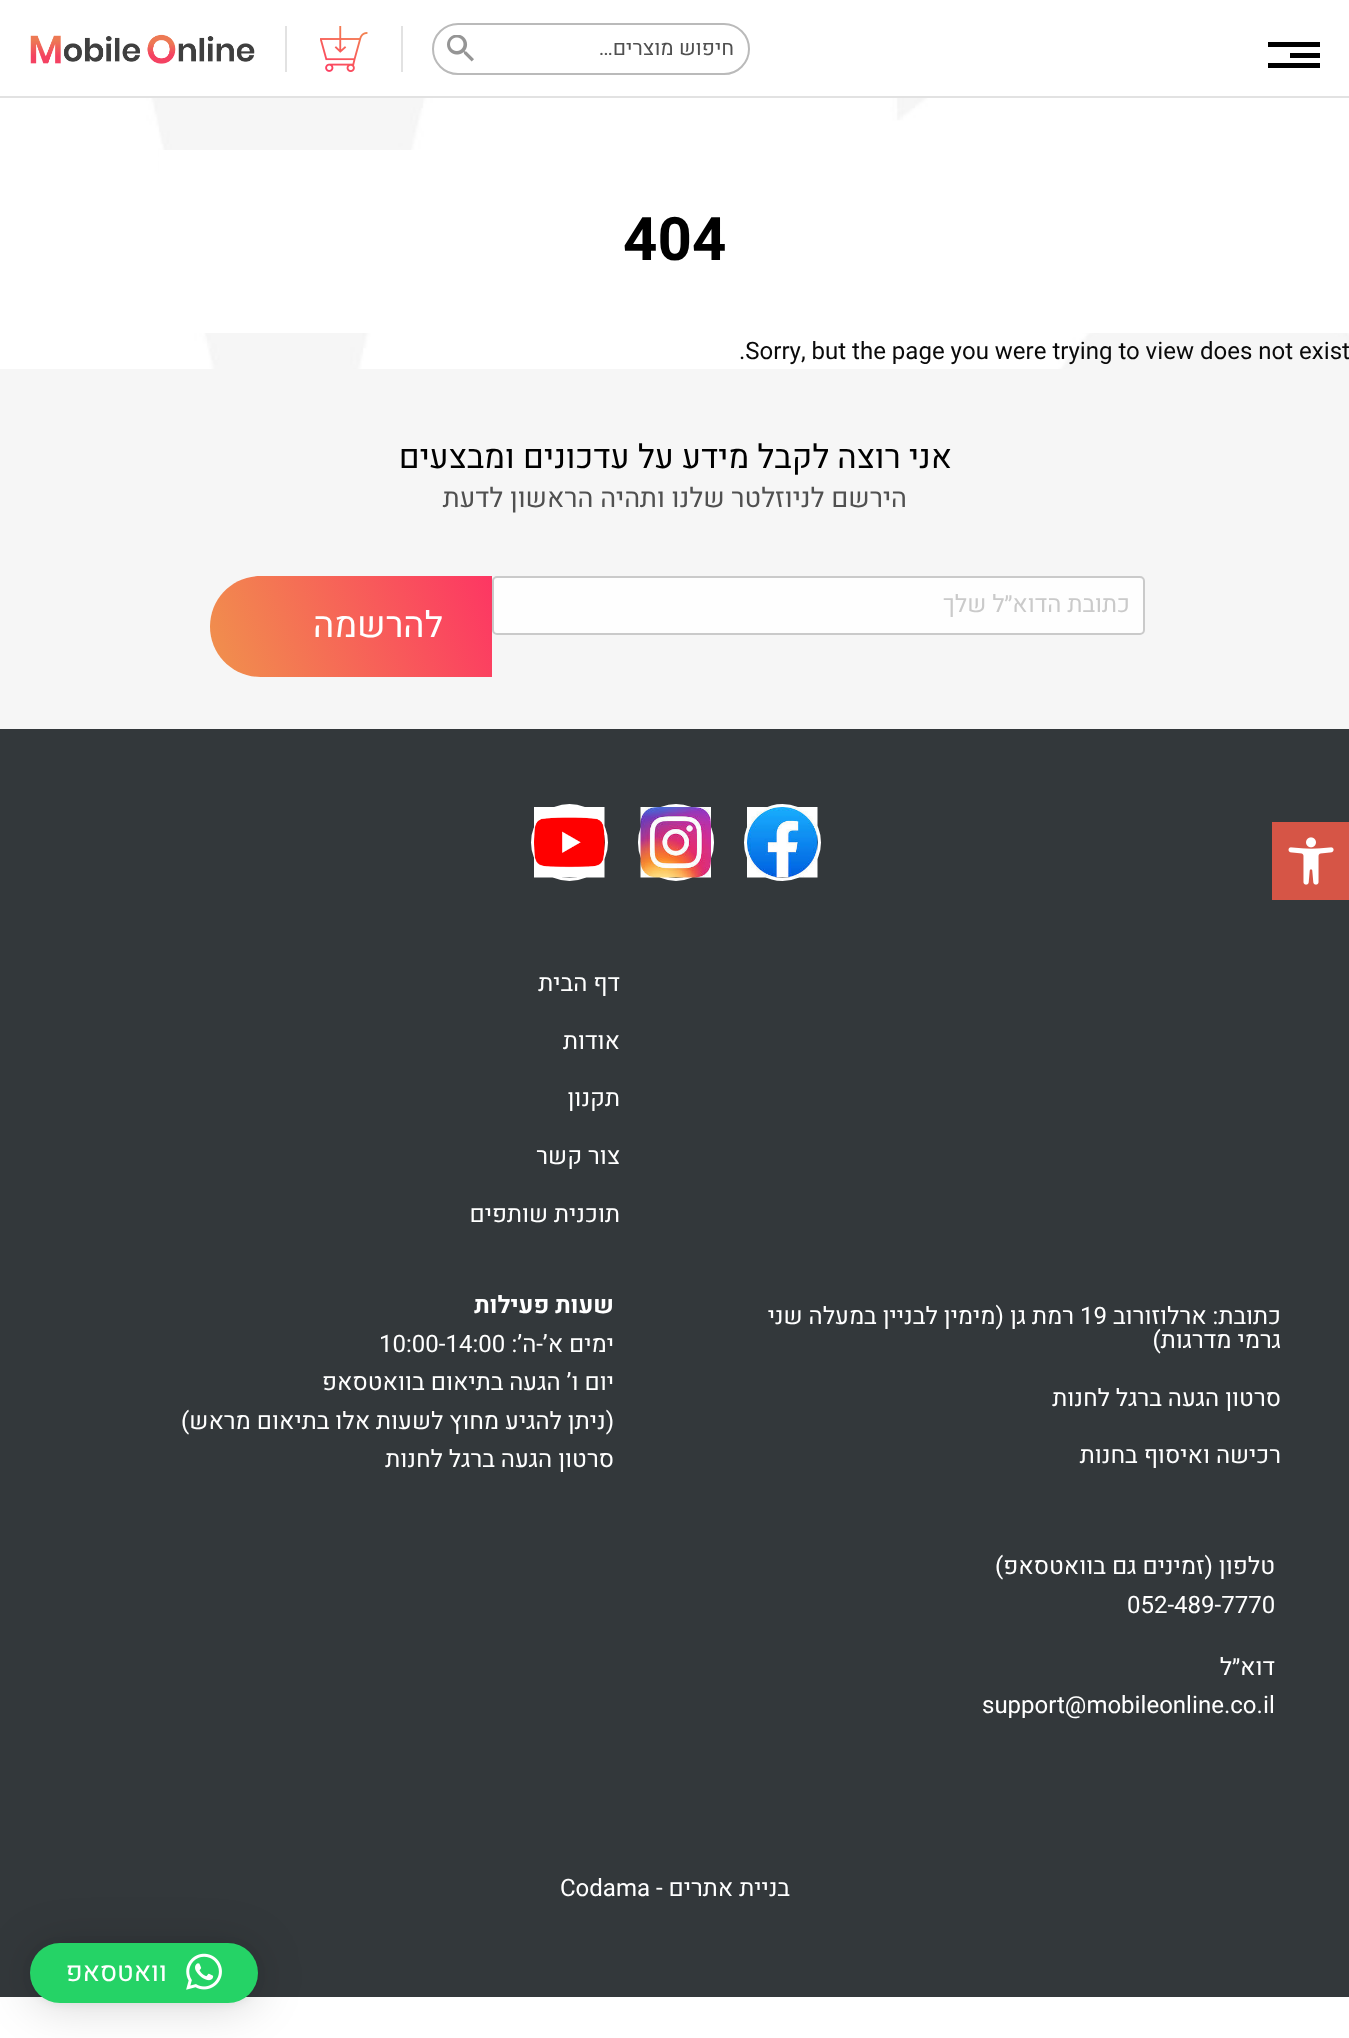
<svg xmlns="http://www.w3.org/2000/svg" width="1349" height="2038">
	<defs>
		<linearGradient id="g1" gradientUnits="userSpaceOnUse" x1="212" y1="682" x2="490" y2="570"><stop offset="0" stop-color="#F0924C" /><stop offset="1" stop-color="#FD3663" /></linearGradient>
	</defs>
	<rect width="100%" height="100%" fill="#FFFFFF" />
	<rect x="0" y="96" width="1349" height="2" fill="#E2E2E2" />
	<rect x="1290" y="53" width="30" height="5" fill="#000000" />
	<rect x="1268" y="42" width="52" height="5" fill="#000000" />
	<rect x="1268" y="63" width="52" height="5" fill="#000000" />
	<rect x="433" y="24" width="316" height="50" rx="25" fill="none" stroke="#BABABA" stroke-width="2" />
	<text x="734" y="55" font-family="Heebo" font-size="21" direction="rtl" fill="#505050">חיפוש מוצרים…</text>
	<image x="447" y="35" width="27" height="27" href="assets/img1.png" />
	<rect x="401" y="26" width="2" height="46" fill="#E2E2E2" />
	<rect x="285" y="26" width="2" height="46" fill="#E2E2E2" />
	<image x="320" y="26" width="48" height="46" href="assets/img2.png" />
	<image x="30" y="34" width="225" height="30" href="assets/img3.png" />
	<image x="0" y="98" width="1349" height="271" href="assets/img4.png" />
	<rect x="159" y="150" width="1190" height="183" fill="#FFFFFF" />
	<text x="623" y="260" font-family="Heebo" font-size="60" font-weight="700" fill="#000000">404</text>
	<text x="739" y="359" font-family="Heebo" font-size="24" fill="#0A0A0A">.Sorry, but the page you were trying to view does not exist</text>
	<rect x="0" y="369" width="1349" height="360" fill="#F6F6F6" />
	<text x="952" y="468" font-family="Heebo" font-size="33" direction="rtl" fill="#000000">אני רוצה לקבל מידע על עדכונים ומבצעים</text>
	<text x="907" y="507" font-family="Heebo" font-size="27" direction="rtl" fill="#505050">הירשם לניוזלטר שלנו ותהיה הראשון לדעת</text>
	<rect x="493" y="577" width="651" height="57" rx="4" fill="#FEFEFE" stroke="#CACACA" stroke-width="2" />
	<text x="1130" y="612" font-family="Heebo" font-size="24" direction="rtl" fill="#CACACA">כתובת הדוא״ל שלך</text>
	<path d="M260.5 576H492V677H260.5C232.5 677 210 654.5 210 626.5C210 598.5 232.5 576 260.5 576Z" fill="url(#g1)" />
	<text x="443" y="637" font-family="Heebo" font-size="36" direction="rtl" fill="#FFFFFF">להרשמה</text>
	<rect x="0" y="729" width="1349" height="1268" fill="#33383B" />
	<circle cx="782.5" cy="842.5" r="37" fill="none" stroke="#FFFFFF" stroke-width="3" />
	<image x="747" y="807" width="71" height="71" href="assets/img5.png" />
	<rect x="639.5" y="805.5" width="73" height="74" rx="36.5" fill="none" stroke="#FFFFFF" stroke-width="3" />
	<image x="640" y="807" width="71" height="71" href="assets/img6.png" />
	<circle cx="569.5" cy="842.5" r="37" fill="none" stroke="#FFFFFF" stroke-width="3" />
	<image x="534" y="807" width="71" height="71" href="assets/img7.png" />
	<g font-family="Heebo" font-size="24" direction="rtl" fill="#FFFFFF">
		<text x="620" y="991">דף הבית</text>
		<text x="620" y="1049">אודות</text>
		<text x="620" y="1106">תקנון</text>
		<text x="620" y="1164">צור קשר</text>
		<text x="620" y="1222">תוכנית שותפים</text>
		<text x="1281" y="1324">כתובת: ארלוזורוב</text>
	</g>
	<text x="1080" y="1324" font-family="Heebo" font-size="24" fill="#FFFFFF">19</text>
	<g font-family="Heebo" font-size="24" direction="rtl" fill="#FFFFFF">
		<text x="1074" y="1324">רמת גן (מימין לבניין במעלה שני</text>
		<text x="1281" y="1348">גרמי מדרגות)</text>
		<text x="1281" y="1406">סרטון הגעה ברגל לחנות</text>
		<text x="1281" y="1463">רכישה ואיסוף בחנות</text>
	</g>
	<text x="614" y="1313" font-family="Heebo" font-size="24" font-weight="700" direction="rtl" fill="#FFFFFF">שעות פעילות</text>
	<text x="614" y="1352" font-family="Heebo" font-size="24" direction="rtl" fill="#FFFFFF">ימים א’-ה’:</text>
	<text x="379" y="1352" font-family="Heebo" font-size="24" fill="#FFFFFF">10:00-14:00</text>
	<g font-family="Heebo" font-size="24" direction="rtl" fill="#FFFFFF">
		<text x="614" y="1390">יום ו’ הגעה בתיאום בוואטסאפ</text>
		<text x="614" y="1429">(ניתן להגיע מחוץ לשעות אלו בתיאום מראש)</text>
		<text x="614" y="1467">סרטון הגעה ברגל לחנות</text>
		<text x="1275" y="1574">טלפון (זמינים גם בוואטסאפ)</text>
	</g>
	<text x="1127" y="1613" font-family="Heebo" font-size="24" fill="#FFFFFF">052-489-7770</text>
	<text x="1275" y="1675" font-family="Heebo" font-size="24" direction="rtl" fill="#FFFFFF">דוא״ל</text>
	<text x="982" y="1713" font-family="Heebo" font-size="24" fill="#FFFFFF">support@mobileonline.co.il</text>
	<text x="790" y="1896" font-family="Heebo" font-size="24" direction="rtl" fill="#FFFFFF">בניית אתרים -</text>
	<text x="560" y="1896" font-family="Heebo" font-size="24" fill="#FFFFFF">Codama</text>
	<rect x="1272" y="822" width="77" height="78" fill="#D65546" />
	<image x="1288" y="837" width="46" height="48" href="assets/img8.png" />
	<rect x="30" y="1946" width="228" height="60" rx="30" fill="#000000" fill-opacity="0.16" filter="blur(24px)" />
	<rect x="30" y="1944" width="228" height="60" rx="30" fill="#000000" fill-opacity="0.06" filter="blur(4.5px)" />
	<rect x="30" y="1943" width="228" height="60" rx="30" fill="#25D366" />
	<image x="186" y="1953" width="36" height="37" href="assets/img9.png" />
	<text x="167" y="1981" font-family="Heebo" font-size="27" direction="rtl" fill="#FFFFFF">וואטסאפ</text>
</svg>
